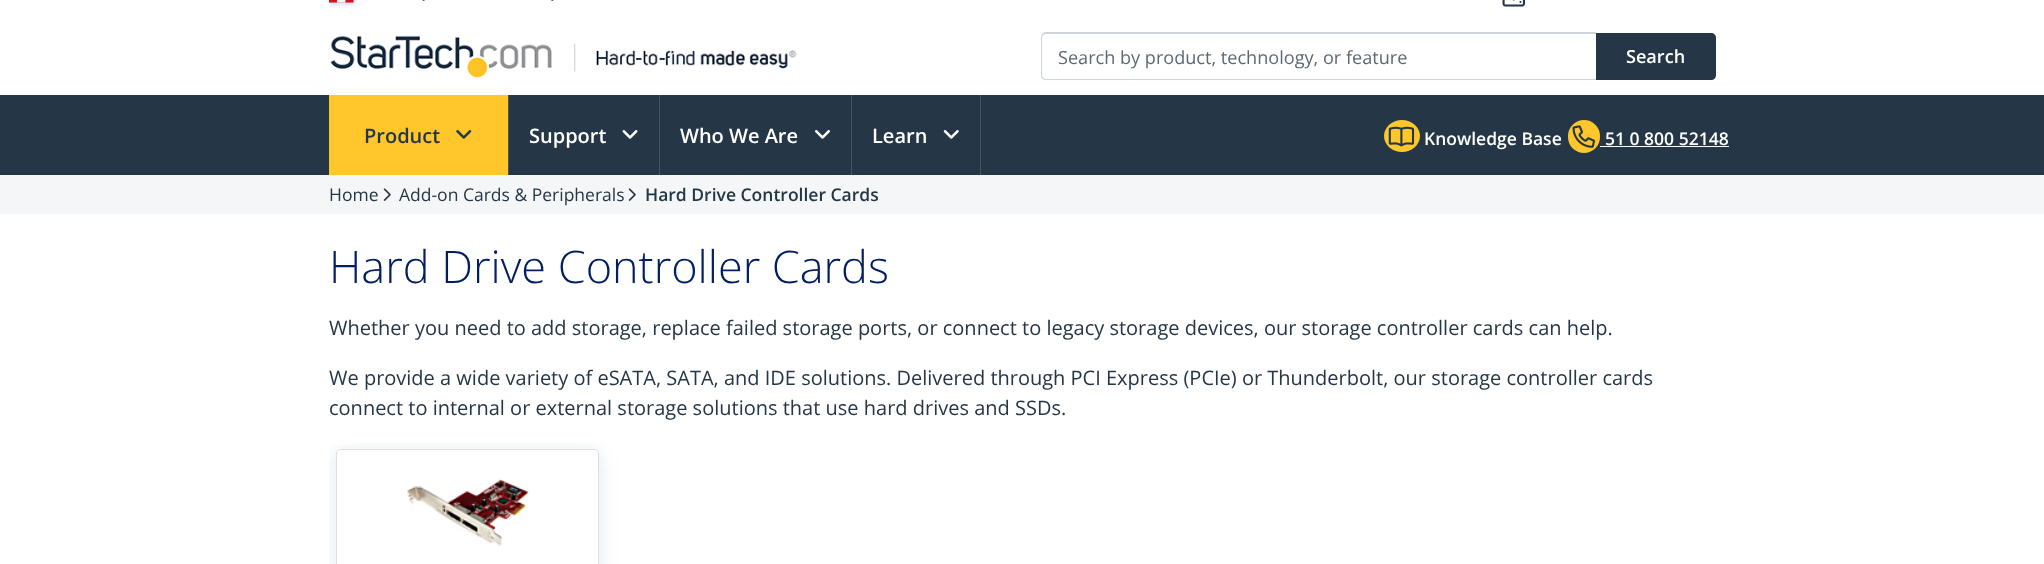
<svg xmlns="http://www.w3.org/2000/svg" width="2044" height="564">
	<defs>
		<clipPath id="clip1"><rect x="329" y="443" width="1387" height="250" /></clipPath>
	</defs>
	<rect width="100%" height="100%" fill="#FFFFFF" />
	<rect x="330" y="-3" width="25" height="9" fill="#0B5780" fill-opacity="0.1" filter="blur(1px)" />
	<image x="329" y="0" width="25" height="3" href="assets/img1.png" />
	<image x="422" y="0" width="3" height="1" href="assets/img2.png" />
	<image x="551" y="0" width="3" height="1" href="assets/img3.png" />
	<image x="1502" y="0" width="23" height="7" href="assets/img4.png" />
	<image x="330" y="35" width="467" height="43" href="assets/img5.png" />
	<path d="M1595 33H1711C1714 33 1716 35 1716 38V75C1716 78 1714 80 1711 80H1595Z" fill="#253746" />
	<path d="M1047 34H1596V79H1047C1045 79 1043 77 1043 75V38C1043 36 1045 34 1047 34Z" fill="#FFFFFF" />
	<path d="M1046 32H1596V80H1046C1043 80 1041 78 1041 75V38C1041 35 1043 32 1046 32ZM1046 34H1596V79H1046C1044 79 1042 77 1042 75V38C1042 35 1044 34 1046 34Z" fill="#CED4DA" fill-rule="evenodd" />
	<text x="1058" y="64" font-family="Open Sans" font-size="18.1" fill="#5C6975">Search by product, technology, or feature</text>
	<text x="1626" y="63" font-family="Open Sans" font-size="18.1" font-weight="600" fill="#FFFFFF">Search</text>
	<rect x="0" y="95" width="2044" height="80" fill="#253746" />
	<rect x="329" y="95" width="179" height="80" fill="#FFC72C" />
	<rect x="508" y="95" width="1" height="80" fill="#4A555E" />
	<text x="364" y="143" font-family="Open Sans" font-size="20" font-weight="600" fill="#253746">Product</text>
	<image x="456" y="130" width="16" height="9" href="assets/img6.png" />
	<rect x="659" y="95" width="1" height="80" fill="#4A555E" />
	<text x="529" y="143" font-family="Open Sans" font-size="20" font-weight="600" fill="#FFFFFF">Support</text>
	<image x="622" y="130" width="16" height="9" href="assets/img7.png" />
	<rect x="851" y="95" width="1" height="80" fill="#4A555E" />
	<text x="680" y="143" font-family="Open Sans" font-size="20" font-weight="600" fill="#FFFFFF">Who We Are</text>
	<image x="815" y="130" width="15" height="9" href="assets/img8.png" />
	<rect x="980" y="95" width="1" height="80" fill="#4A555E" />
	<text x="872" y="143" font-family="Open Sans" font-size="20" font-weight="600" fill="#FFFFFF">Learn</text>
	<image x="943" y="130" width="16" height="9" href="assets/img9.png" />
	<ellipse cx="1402" cy="136" rx="18" ry="16" fill="#FFC72C" />
	<image x="1388" y="126" width="27" height="21" href="assets/img10.png" />
	<text x="1424" y="145" font-family="Open Sans" font-size="17.5" font-weight="600" fill="#FFFFFF">Knowledge Base</text>
	<rect x="1568" y="120" width="32" height="33" rx="16" fill="#FFC72C" />
	<image x="1572" y="125" width="23" height="23" href="assets/img11.png" />
	<text x="1605" y="145" font-family="Open Sans" font-size="17.5" font-weight="600" fill="#FFFFFF">51 0 800 52148</text>
	<rect x="1600" y="146" width="129" height="1" fill="#FFFFFF" />
	<rect x="0" y="175" width="2044" height="39" fill="#F4F6F8" />
	<text x="329" y="201" font-family="Open Sans" font-size="17.5" fill="#253746">Home</text>
	<image x="383" y="188" width="8" height="13" href="assets/img12.png" />
	<text x="399" y="201" font-family="Open Sans" font-size="17.5" fill="#253746">Add-on Cards &amp; Peripherals</text>
	<image x="628" y="188" width="8" height="13" href="assets/img12.png" />
	<text x="645" y="201" font-family="Open Sans" font-size="17.5" font-weight="600" fill="#253746">Hard Drive Controller Cards</text>
	<text x="329" y="283" font-family="Open Sans" font-size="45" font-weight="300" fill="#001E60">Hard Drive Controller Cards</text>
	<g font-family="Open Sans" font-size="20" fill="#253746">
		<text x="329" y="335">Whether you need to add storage, replace failed storage ports, or connect to legacy storage devices, our storage controller cards can help.</text>
		<text x="329" y="385">We provide a wide variety of eSATA, SATA, and IDE solutions. Delivered through PCI Express (PCIe) or Thunderbolt, our storage controller cards</text>
		<text x="329" y="415">connect to internal or external storage solutions that use hard drives and SSDs.</text>
	</g>
	<g clip-path="url(#clip1)">
		<rect x="336" y="451" width="263" height="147" rx="5" fill="#0B5780" fill-opacity="0.12" filter="blur(9.5px)" />
	</g>
	<rect x="336.5" y="449.5" width="262" height="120" rx="4.5" fill="#FFFFFF" stroke="#DFDFDF" />
	<image x="407" y="479" width="122" height="67" href="assets/img13.png" />
</svg>
